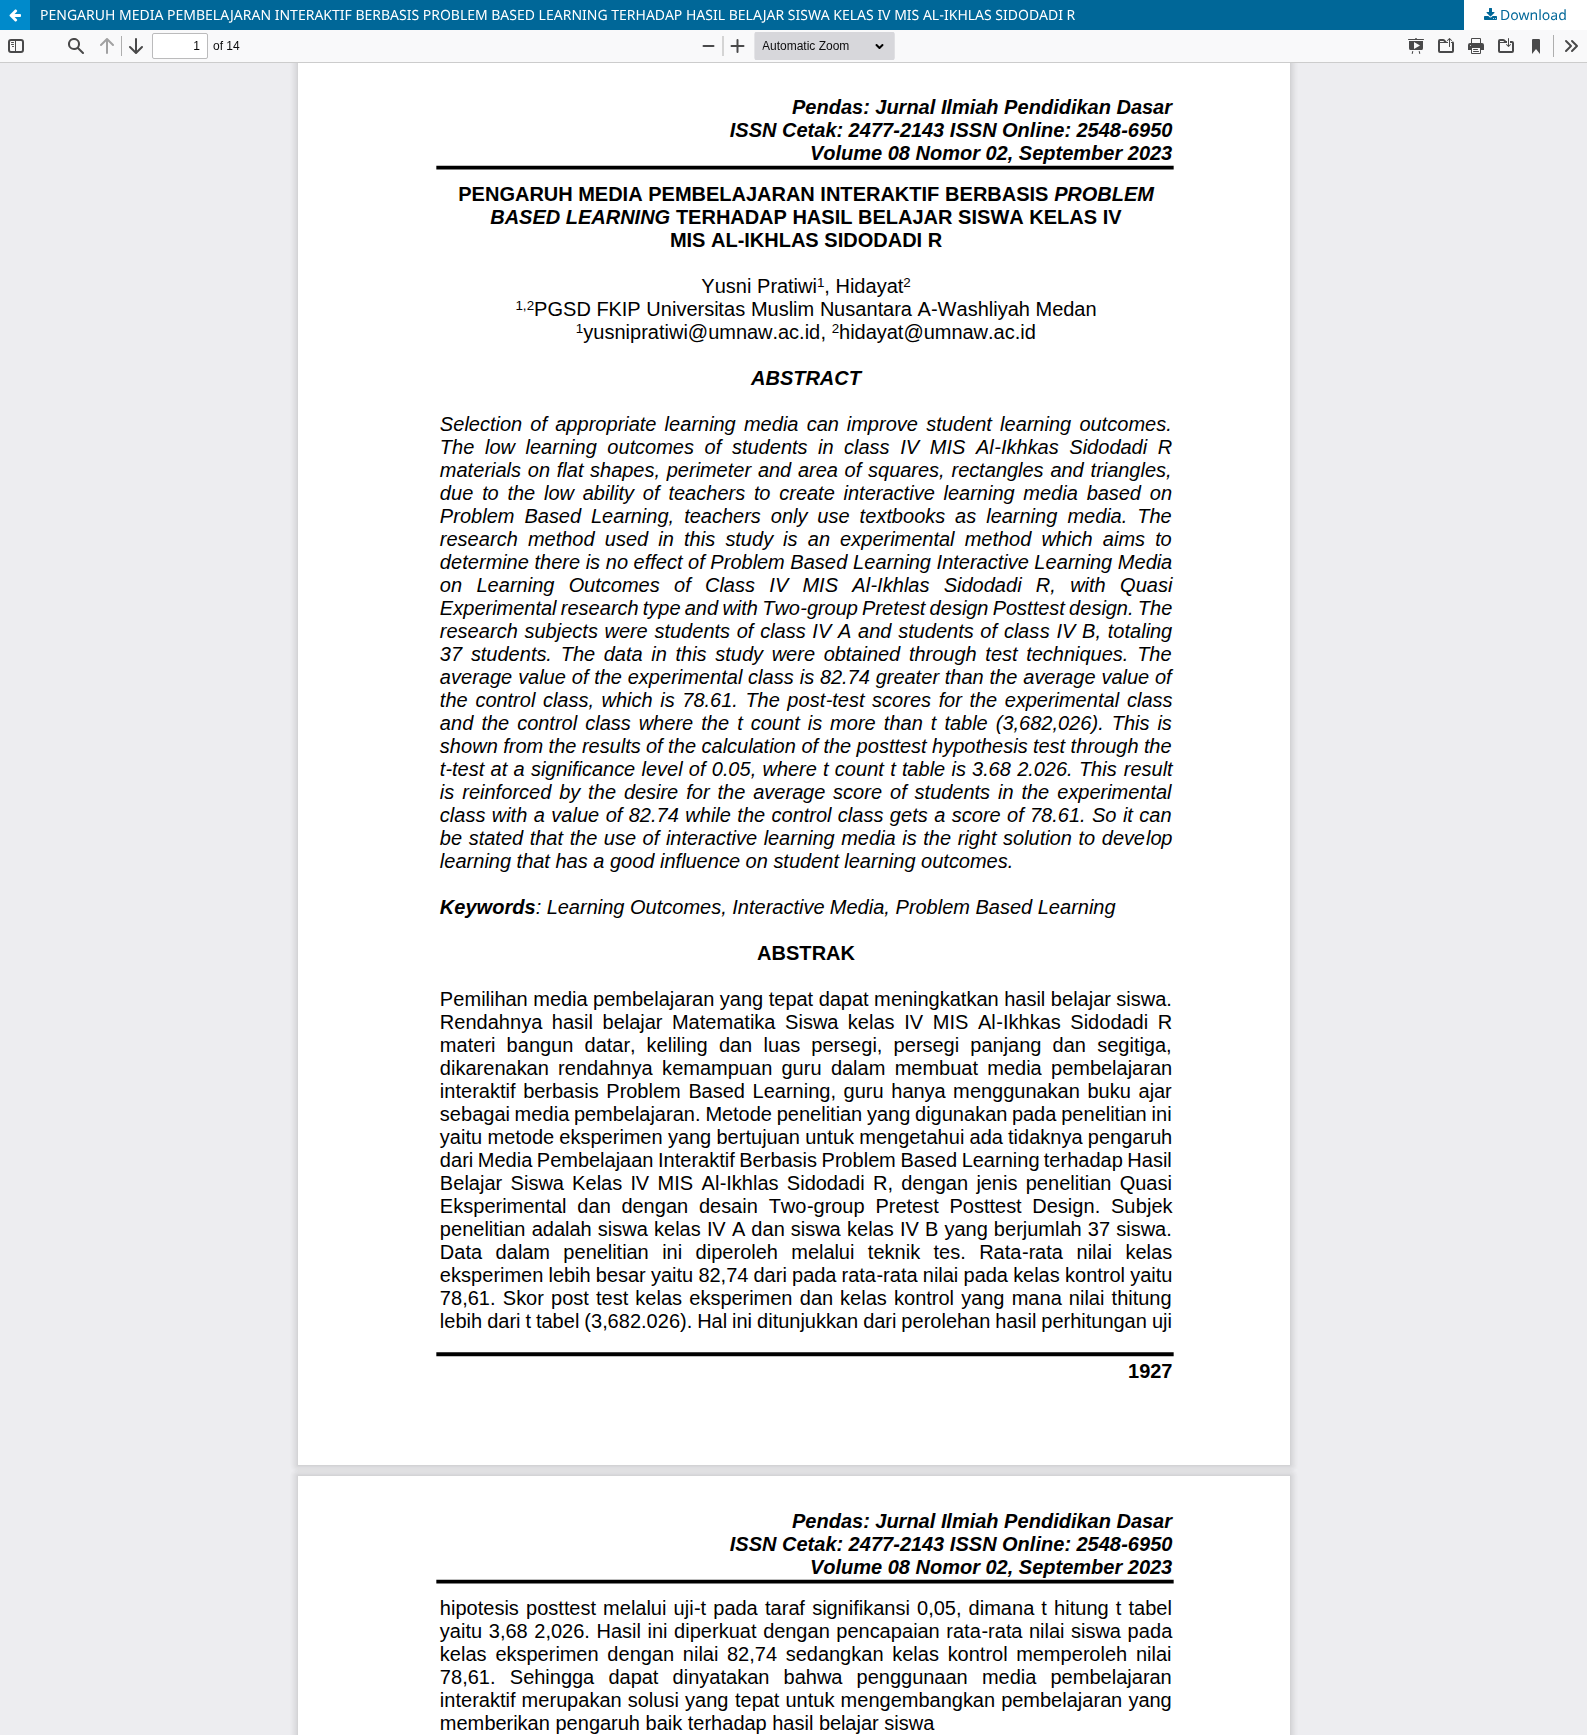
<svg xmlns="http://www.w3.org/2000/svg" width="1587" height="1735">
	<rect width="100%" height="100%" fill="#FFFFFF" />
	<rect x="30" y="0" width="1434" height="30" fill="#006798" />
	<rect x="0" y="0" width="30" height="30" fill="#008ACB" />
	<image x="9" y="9" width="12" height="13" href="assets/img1.png" />
	<text x="40" y="20" font-family="Noto Sans" font-size="14" fill="#FFFFFF">PENGARUH MEDIA PEMBELAJARAN INTERAKTIF BERBASIS PROBLEM BASED LEARNING TERHADAP HASIL BELAJAR SISWA KELAS IV MIS AL-IKHLAS SIDODADI R</text>
	<image x="1484" y="8" width="13" height="12" href="assets/img2.png" />
	<text x="1500" y="20" font-family="Noto Sans" font-size="14" fill="#006798">Download</text>
	<image x="0" y="30" width="1587" height="1705" href="assets/img3.png" />
</svg>
